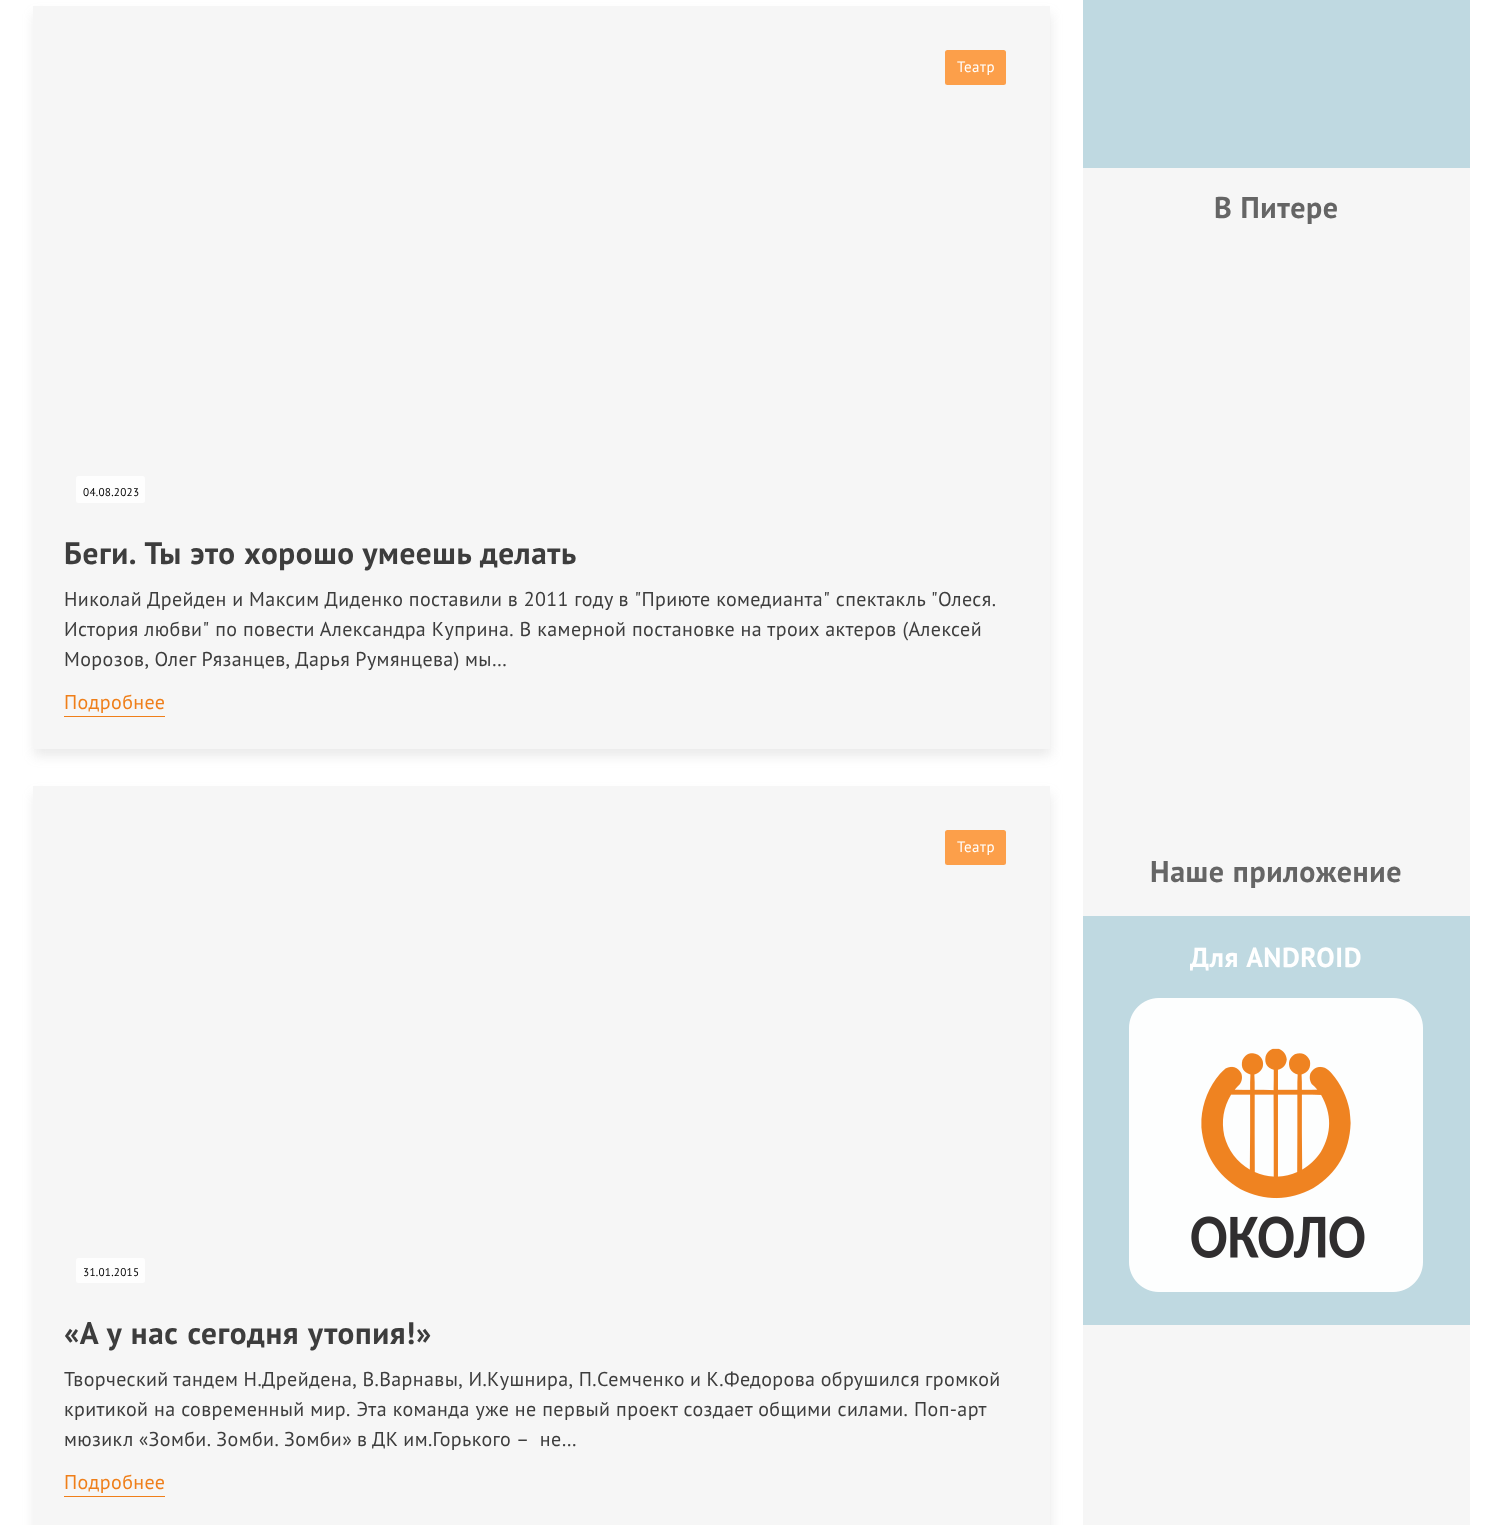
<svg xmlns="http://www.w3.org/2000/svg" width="1502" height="1525">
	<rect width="100%" height="100%" fill="#FFFFFF" />
	<rect x="34" y="14" width="1017" height="742" fill="#888888" fill-opacity="0.18" filter="blur(6px)" />
	<rect x="33" y="6" width="1017" height="743" fill="#F6F6F6" />
	<rect x="945" y="50" width="61" height="35" rx="2.5" fill="#FC9F4A" />
	<text x="957" y="72" font-family="PT Sans" font-size="15" letter-spacing="0.5" fill="#FFFFFF">Театр</text>
	<rect x="76" y="476" width="69" height="27" rx="2.5" fill="#FEFEFE" />
	<text x="83" y="496" font-family="PT Sans" font-size="11.25" letter-spacing="0.25" fill="#000000">04.08.2023</text>
	<text x="64" y="564" font-family="PT Sans" font-size="31.25" font-weight="700" letter-spacing="0.6" fill="#3D3D3D">Беги. Ты это хорошо умеешь делать</text>
	<g font-family="PT Sans" font-size="20" letter-spacing="0.4" fill="#3D3D3D">
		<text x="64" y="606" word-spacing="-0.25">Николай Дрейден и Максим Диденко поставили в 2011 году в "Приюте комедианта" спектакль "Олеся.</text>
		<text x="64" y="636" word-spacing="-0.1">История любви" по повести Александра Куприна. В камерной постановке на троих актеров (Алексей</text>
		<text x="64" y="666" word-spacing="-0.5">Морозов, Олег Рязанцев, Дарья Румянцева) мы…</text>
	</g>
	<rect x="64" y="716" width="101" height="1" fill="#EF7F1A" />
	<text x="64" y="709" font-family="PT Sans" font-size="20" letter-spacing="0.4" fill="#EF7F1A">Подробнее</text>
	<rect x="34" y="794" width="1017" height="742" fill="#888888" fill-opacity="0.18" filter="blur(6px)" />
	<rect x="33" y="786" width="1017" height="739" fill="#F6F6F6" />
	<rect x="945" y="830" width="61" height="35" rx="2.5" fill="#FC9F4A" />
	<text x="957" y="852" font-family="PT Sans" font-size="15" letter-spacing="0.5" fill="#FFFFFF">Театр</text>
	<rect x="76" y="1258" width="69" height="25" rx="2.5" fill="#FEFEFE" />
	<text x="83" y="1276" font-family="PT Sans" font-size="11.25" letter-spacing="0.25" fill="#000000">31.01.2015</text>
	<text x="64" y="1344" word-spacing="1" font-family="PT Sans" font-size="31.25" font-weight="700" letter-spacing="0.6" fill="#3D3D3D">«А у нас сегодня утопия!»</text>
	<g font-family="PT Sans" font-size="20" letter-spacing="0.4" fill="#3D3D3D">
		<text x="64" y="1386" word-spacing="-0.5">Творческий тандем Н.Дрейдена, В.Варнавы, И.Кушнира, П.Семченко и К.Федорова обрушился громкой</text>
		<text x="64" y="1416" word-spacing="-0.1">критикой на современный мир. Эта команда уже не первый проект создает общими силами. Поп-арт</text>
		<text x="64" y="1446" word-spacing="-0.75" xml:space="preserve">мюзикл «Зомби. Зомби. Зомби» в ДК им.Горького –  не…</text>
	</g>
	<rect x="64" y="1496" width="101" height="1" fill="#EF7F1A" />
	<text x="64" y="1489" font-family="PT Sans" font-size="20" letter-spacing="0.4" fill="#EF7F1A">Подробнее</text>
	<rect x="1083" y="168" width="387" height="1357" fill="#F6F6F6" />
	<rect x="1083" y="0" width="387" height="168" fill="#BFD9E1" />
	<g font-family="PT Sans" font-size="30" font-weight="700" letter-spacing="0.6" fill="#656565">
		<text x="1214" y="218">В Питере</text>
		<text x="1150" y="882">Наше приложение</text>
	</g>
	<rect x="1083" y="916" width="387" height="409" fill="#BFD9E1" />
	<text x="1190" y="967" font-family="PT Sans" font-size="27.5" font-weight="700" letter-spacing="0.5" fill="#FFFFFF">Для ANDROID</text>
	<image x="1129" y="998" width="294" height="294" href="assets/img1.png" />
</svg>
